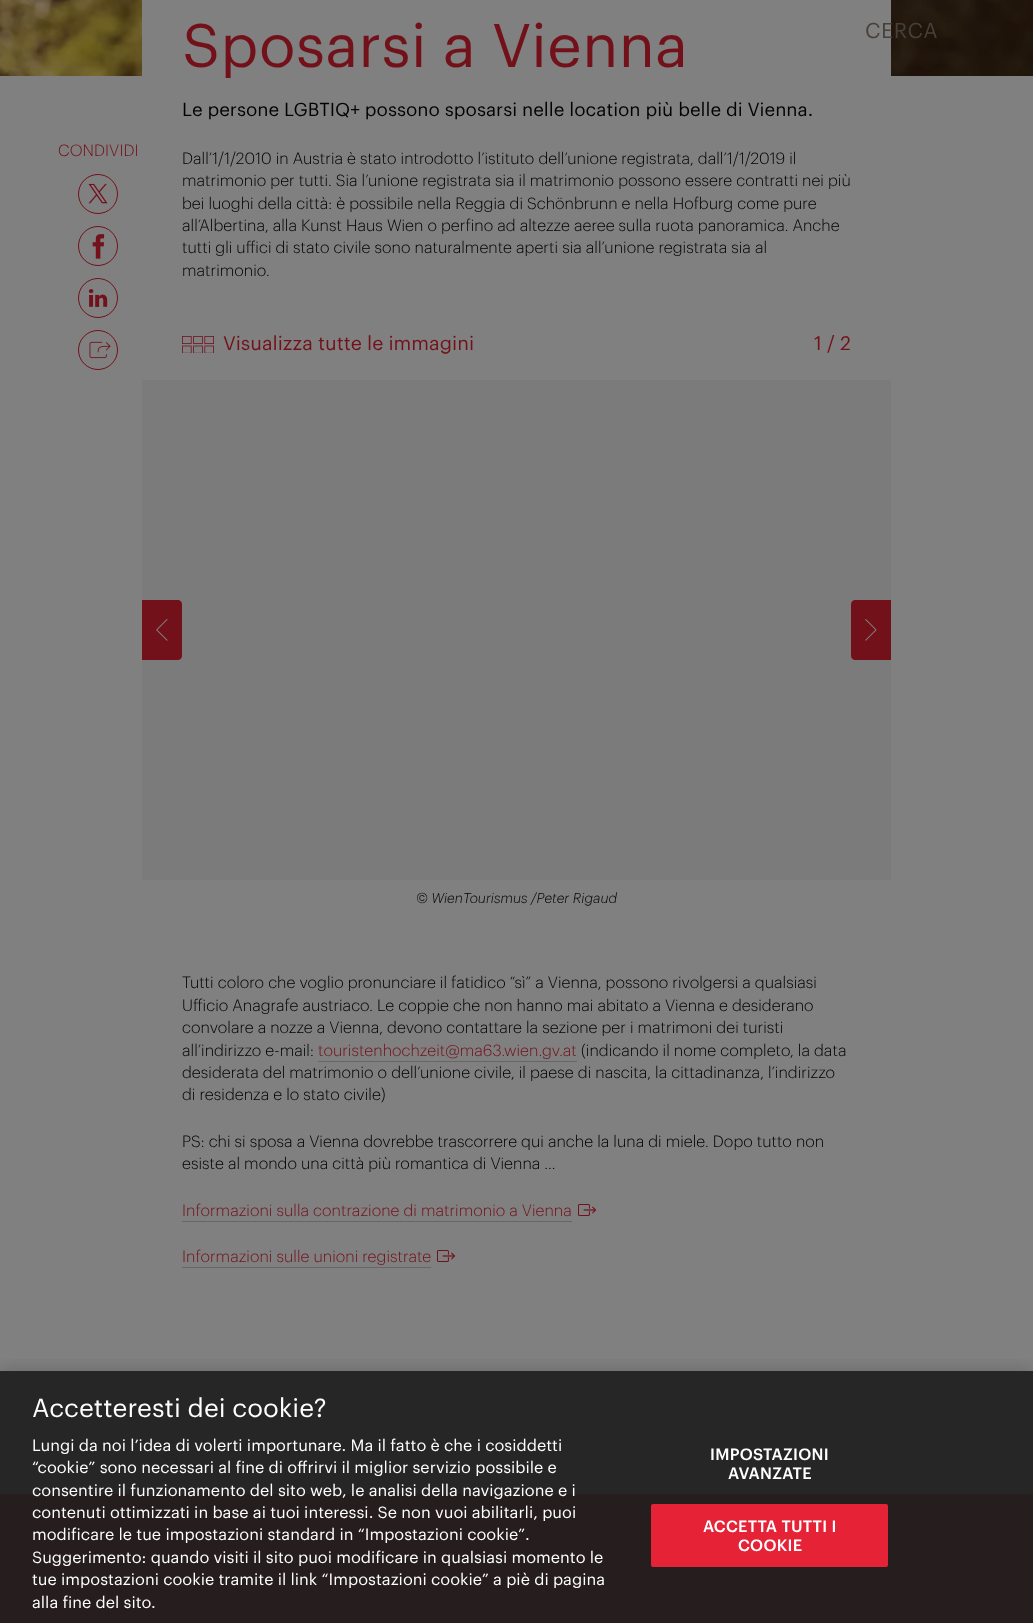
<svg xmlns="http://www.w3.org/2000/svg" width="1033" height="1623">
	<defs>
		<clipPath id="clip1"><rect x="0" y="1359" width="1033" height="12" /></clipPath>
	</defs>
	<rect width="100%" height="100%" fill="#808080" />
	<rect x="0" y="1371" width="1033" height="123" fill="#262626" />
	<image x="0" y="0" width="1033" height="76" href="assets/img1.png" />
	<text x="58" y="156" font-family="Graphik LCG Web" font-size="16" font-weight="300" fill="#73111B">CONDIVIDI</text>
	<image x="88" y="183" width="20" height="21" href="assets/img2.png" />
	<circle cx="98" cy="194" r="19.5" fill="none" stroke="#73111B" />
	<image x="92" y="234" width="13" height="25" href="assets/img3.png" />
	<circle cx="98" cy="246" r="19.5" fill="none" stroke="#73111B" />
	<image x="88" y="289" width="20" height="18" href="assets/img4.png" />
	<circle cx="98" cy="298" r="19.5" fill="none" stroke="#73111B" />
	<image x="89" y="341" width="22" height="18" href="assets/img5.png" />
	<circle cx="98" cy="350" r="19.5" fill="none" stroke="#73111B" />
	<rect x="142" y="0" width="749" height="76" fill="#808080" />
	<text x="182" y="67" font-family="Graphik LCG Web" font-size="60" fill="#73111B">Sposarsi a Vienna</text>
	<text x="182" y="116" font-family="Graphik LCG Web" font-size="18.4" fill="#020202">Le persone LGBTIQ+ possono sposarsi nelle location più belle di Vienna.</text>
	<g font-family="Graphik LCG Web" font-size="16" font-weight="300" fill="#020202">
		<text x="182" y="164">Dall’1/1/2010 in Austria è stato introdotto l’istituto dell’unione registrata, dall’1/1/2019 il</text>
		<text x="182" y="186">matrimonio per tutti. Sia l’unione registrata sia il matrimonio possono essere contratti nei più</text>
		<text x="182" y="209">bei luoghi della città: è possibile nella Reggia di Schönbrunn e nella Hofburg come pure</text>
		<text x="182" y="231">all’Albertina, alla Kunst Haus Wien o perfino ad altezze aeree sulla ruota panoramica. Anche</text>
		<text x="182" y="253">tutti gli uffici di stato civile sono naturalmente aperti sia all’unione registrata sia al</text>
		<text x="182" y="276">matrimonio.</text>
	</g>
	<image x="182" y="336" width="32" height="17" href="assets/img6.png" />
	<g font-family="Graphik LCG Web" font-size="19.25" fill="#73111B">
		<text x="223" y="350">Visualizza tutte le immagini</text>
		<text x="814" y="350">1 / 2</text>
	</g>
	<rect x="142" y="380" width="749" height="500" fill="#7B7B7B" />
	<path d="M142 600H178C180 600 182 602 182 604V656C182 658 180 660 178 660H142Z" fill="#73111B" />
	<image x="156" y="619" width="12" height="22" href="assets/img7.png" />
	<path d="M855 600H891V660H855C853 660 851 658 851 656V604C851 602 853 600 855 600Z" fill="#73111B" />
	<image x="865" y="619" width="12" height="22" href="assets/img8.png" />
	<text x="416" y="903" font-family="Graphik LCG Web" font-size="14" font-weight="300" font-style="italic" fill="#020202">© WienTourismus /Peter Rigaud</text>
	<g font-family="Graphik LCG Web" font-size="16" font-weight="300" fill="#020202">
		<text x="182" y="988">Tutti coloro che voglio pronunciare il fatidico “sì” a Vienna, possono rivolgersi a qualsiasi</text>
		<text x="182" y="1011">Ufficio Anagrafe austriaco. Le coppie che non hanno mai abitato a Vienna e desiderano</text>
		<text x="182" y="1033">convolare a nozze a Vienna, devono contattare la sezione per i matrimoni dei turisti</text>
		<text x="182" y="1056">all’indirizzo e-mail:</text>
	</g>
	<text x="318" y="1056" font-family="Graphik LCG Web" font-size="16" font-weight="300" fill="#73111B">touristenhochzeit@ma63.wien.gv.at</text>
	<rect x="318" y="1061" width="259" height="1" fill="#666666" />
	<g font-family="Graphik LCG Web" font-size="16" font-weight="300" fill="#020202">
		<text x="581" y="1056">(indicando il nome completo, la data</text>
		<text x="182" y="1078">desiderata del matrimonio o dell’unione civile, il paese di nascita, la cittadinanza, l’indirizzo</text>
		<text x="182" y="1100">di residenza e lo stato civile)</text>
		<text x="182" y="1147">PS: chi si sposa a Vienna dovrebbe trascorrere qui anche la luna di miele. Dopo tutto non</text>
		<text x="182" y="1169">esiste al mondo una città più romantica di Vienna ...</text>
	</g>
	<text x="182" y="1216" font-family="Graphik LCG Web" font-size="16" font-weight="300" fill="#73111B">Informazioni sulla contrazione di matrimonio a Vienna</text>
	<rect x="182" y="1221" width="390" height="1" fill="#666666" />
	<image x="578" y="1204" width="18" height="12" href="assets/img9.png" />
	<text x="182" y="1262" font-family="Graphik LCG Web" font-size="16" font-weight="300" fill="#73111B">Informazioni sulle unioni registrate</text>
	<rect x="182" y="1267" width="249" height="1" fill="#666666" />
	<image x="437" y="1250" width="18" height="12" href="assets/img9.png" />
	<image x="162" y="1451" width="16" height="14" href="assets/img10.png" />
	<text x="865" y="38" font-family="Graphik LCG Web" font-size="21" letter-spacing="0.5" fill="#47403A">CERCA</text>
	<rect x="0" y="1494" width="1033" height="129" fill="#251D1E" />
	<g clip-path="url(#clip1)">
		<rect x="0" y="1371" width="1033" height="252" fill="#000000" fill-opacity="0.2" filter="blur(9px)" />
	</g>
	<text x="32" y="1417" font-family="Graphik LCG Web" font-size="25.6" fill="#FFFFFF">Accetteresti dei cookie?</text>
	<g font-family="Graphik LCG Web" font-size="16" fill="#FFFFFF">
		<text x="32" y="1451">Lungi da noi l’idea di volerti importunare. Ma il fatto è che i cosiddetti</text>
		<text x="32" y="1473">“cookie” sono necessari al fine di offrirvi il miglior servizio possibile e</text>
		<text x="32" y="1496">consentire il funzionamento del sito web, le analisi della navigazione e i</text>
		<text x="32" y="1518">contenuti ottimizzati in base ai tuoi interessi. Se non vuoi abilitarli, puoi</text>
		<text x="32" y="1540">modificare le tue impostazioni standard in “Impostazioni cookie”.</text>
		<text x="32" y="1563">Suggerimento: quando visiti il sito puoi modificare in qualsiasi momento le</text>
		<text x="32" y="1585">tue impostazioni cookie tramite il link “Impostazioni cookie” a piè di pagina</text>
		<text x="32" y="1608">alla fine del sito.</text>
	</g>
	<g font-family="Graphik LCG Web" font-size="16" font-weight="500" letter-spacing="0.2" fill="#FFFFFF">
		<text x="710" y="1460">IMPOSTAZIONI</text>
		<text x="728" y="1479">AVANZATE</text>
	</g>
	<rect x="651" y="1504" width="237" height="63" rx="2" fill="#E52236" />
	<g font-family="Graphik LCG Web" font-size="16" font-weight="500" letter-spacing="0.2" fill="#FFFFFF">
		<text x="703" y="1532">ACCETTA TUTTI I</text>
		<text x="738" y="1551">COOKIE</text>
	</g>
</svg>
